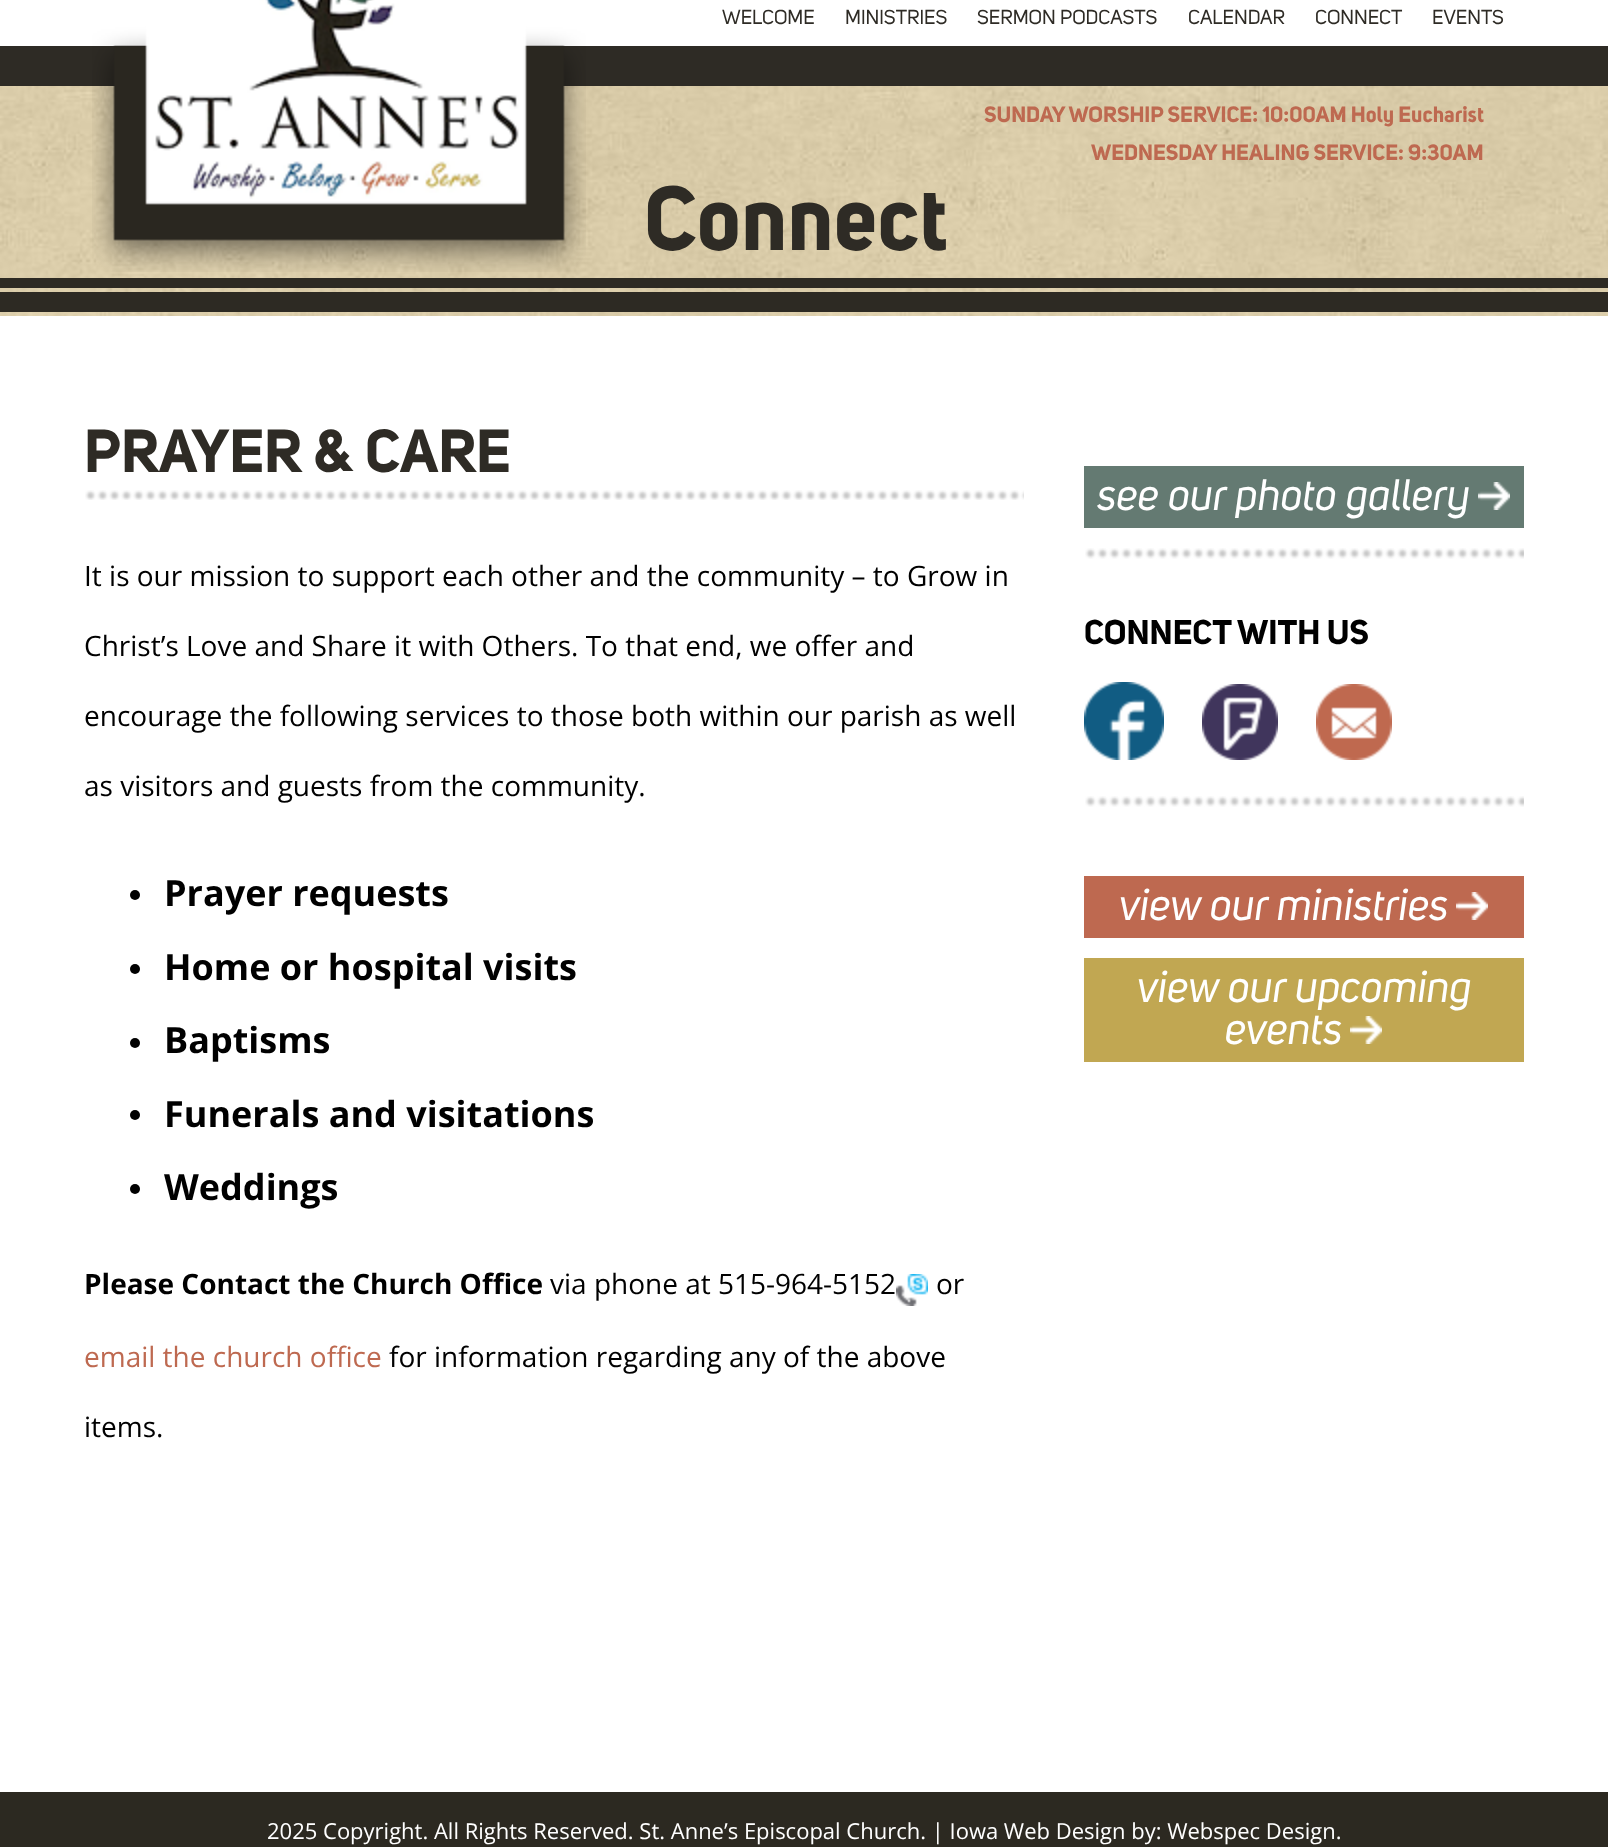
<svg xmlns="http://www.w3.org/2000/svg" width="1608" height="1847">
	<rect width="100%" height="100%" fill="#FFFFFF" />
	<rect x="0" y="46" width="1608" height="40" fill="#2E2B25" />
	<image x="0" y="86" width="1608" height="230" href="assets/img2.png" />
	<image x="92" y="0" width="494" height="272" href="assets/img1.png" />
	<g font-family="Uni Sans" font-size="20" fill="#2E2B25">
		<text x="722" y="24">WELCOME</text>
		<text x="845" y="24">MINISTRIES</text>
		<text x="977" y="24">SERMON PODCASTS</text>
		<text x="1188" y="24">CALENDAR</text>
		<text x="1315" y="24">CONNECT</text>
		<text x="1432" y="24">EVENTS</text>
	</g>
	<g font-family="Uni Sans" font-size="22" font-weight="700" fill="#BE6950">
		<text x="984" y="122">SUNDAY WORSHIP SERVICE: 10:00AM Holy Eucharist</text>
		<text x="1091" y="160">WEDNESDAY HEALING SERVICE: 9:30AM</text>
	</g>
	<text x="644" y="250" font-family="Uni Sans" font-size="90" font-weight="700" fill="#2E2B25">Connect</text>
	<rect x="0" y="278" width="1608" height="10" fill="#2D2A23" />
	<rect x="0" y="292" width="1608" height="20" fill="#2D2A23" />
	<text x="84" y="472" font-family="Uni Sans" font-size="60" font-weight="700" fill="#2E2B25">PRAYER &amp; CARE</text>
	<image x="85" y="490" width="939" height="10" href="assets/img3.png" />
	<g font-family="Open Sans" font-size="28" fill="#000000">
		<text x="84" y="586">It is our mission to support each other and the community – to Grow in</text>
		<text x="84" y="656">Christ’s Love and Share it with Others. To that end, we offer and</text>
		<text x="84" y="726">encourage the following services to those both within our parish as well</text>
		<text x="84" y="796">as visitors and guests from the community.</text>
	</g>
	<circle cx="135" cy="895" r="5" fill="#000000" />
	<text x="164" y="906" font-family="Open Sans" font-size="36" font-weight="700" fill="#000000">Prayer requests</text>
	<circle cx="135" cy="969" r="5" fill="#000000" />
	<text x="164" y="980" font-family="Open Sans" font-size="36" font-weight="700" fill="#000000">Home or hospital visits</text>
	<circle cx="135" cy="1043" r="5" fill="#000000" />
	<text x="164" y="1053" font-family="Open Sans" font-size="36" font-weight="700" fill="#000000">Baptisms</text>
	<circle cx="135" cy="1115" r="5" fill="#000000" />
	<text x="164" y="1127" font-family="Open Sans" font-size="36" font-weight="700" fill="#000000">Funerals and visitations</text>
	<circle cx="135" cy="1189" r="5" fill="#000000" />
	<text x="164" y="1200" font-family="Open Sans" font-size="36" font-weight="700" fill="#000000">Weddings</text>
	<text x="84" y="1294" font-family="Open Sans" font-size="28" font-weight="700" fill="#000000">Please Contact the Church Office</text>
	<text x="550" y="1294" font-family="Open Sans" font-size="28" fill="#000000">via phone at 515-964-5152</text>
	<image x="896" y="1274" width="32" height="32" href="assets/img4.png" />
	<text x="936" y="1294" font-family="Open Sans" font-size="28" fill="#000000">or</text>
	<text x="84" y="1367" font-family="Open Sans" font-size="28" fill="#BE6950">email the church office</text>
	<g font-family="Open Sans" font-size="28" fill="#000000">
		<text x="389" y="1367">for information regarding any of the above</text>
		<text x="84" y="1437">items.</text>
	</g>
	<rect x="1084" y="466" width="440" height="62" fill="#647A72" />
	<text x="1097" y="510" font-family="Uni Sans" font-size="44" font-style="italic" fill="#FFFFFF">see our photo gallery</text>
	<image x="1478" y="482" width="32" height="28" href="assets/img5.png" />
	<image x="1085" y="548" width="439" height="11" href="assets/img6.png" />
	<text x="1084" y="644" font-family="Uni Sans" font-size="34" font-weight="700" fill="#000000">CONNECT WITH US</text>
	<image x="1084" y="682" width="80" height="78" href="assets/img7.png" />
	<image x="1202" y="684" width="76" height="76" href="assets/img8.png" />
	<image x="1316" y="684" width="76" height="76" href="assets/img9.png" />
	<image x="1085" y="796" width="439" height="11" href="assets/img6.png" />
	<rect x="1084" y="876" width="440" height="62" fill="#BE6950" />
	<text x="1119" y="920" font-family="Uni Sans" font-size="44" font-style="italic" fill="#FFFFFF">view our ministries</text>
	<image x="1456" y="892" width="32" height="28" href="assets/img10.png" />
	<rect x="1084" y="958" width="440" height="104" fill="#C1A752" />
	<g font-family="Uni Sans" font-size="44" font-style="italic" fill="#FFFFFF">
		<text x="1137" y="1002">view our upcoming</text>
		<text x="1225" y="1044">events</text>
	</g>
	<image x="1350" y="1016" width="32" height="28" href="assets/img11.png" />
	<rect x="0" y="1792" width="1608" height="55" fill="#2C2921" />
	<text x="267" y="1839" font-family="Open Sans" font-size="22" fill="#FFFFFF">2025 Copyright. All Rights Reserved. St. Anne’s Episcopal Church. | Iowa Web Design by: Webspec Design.</text>
</svg>
